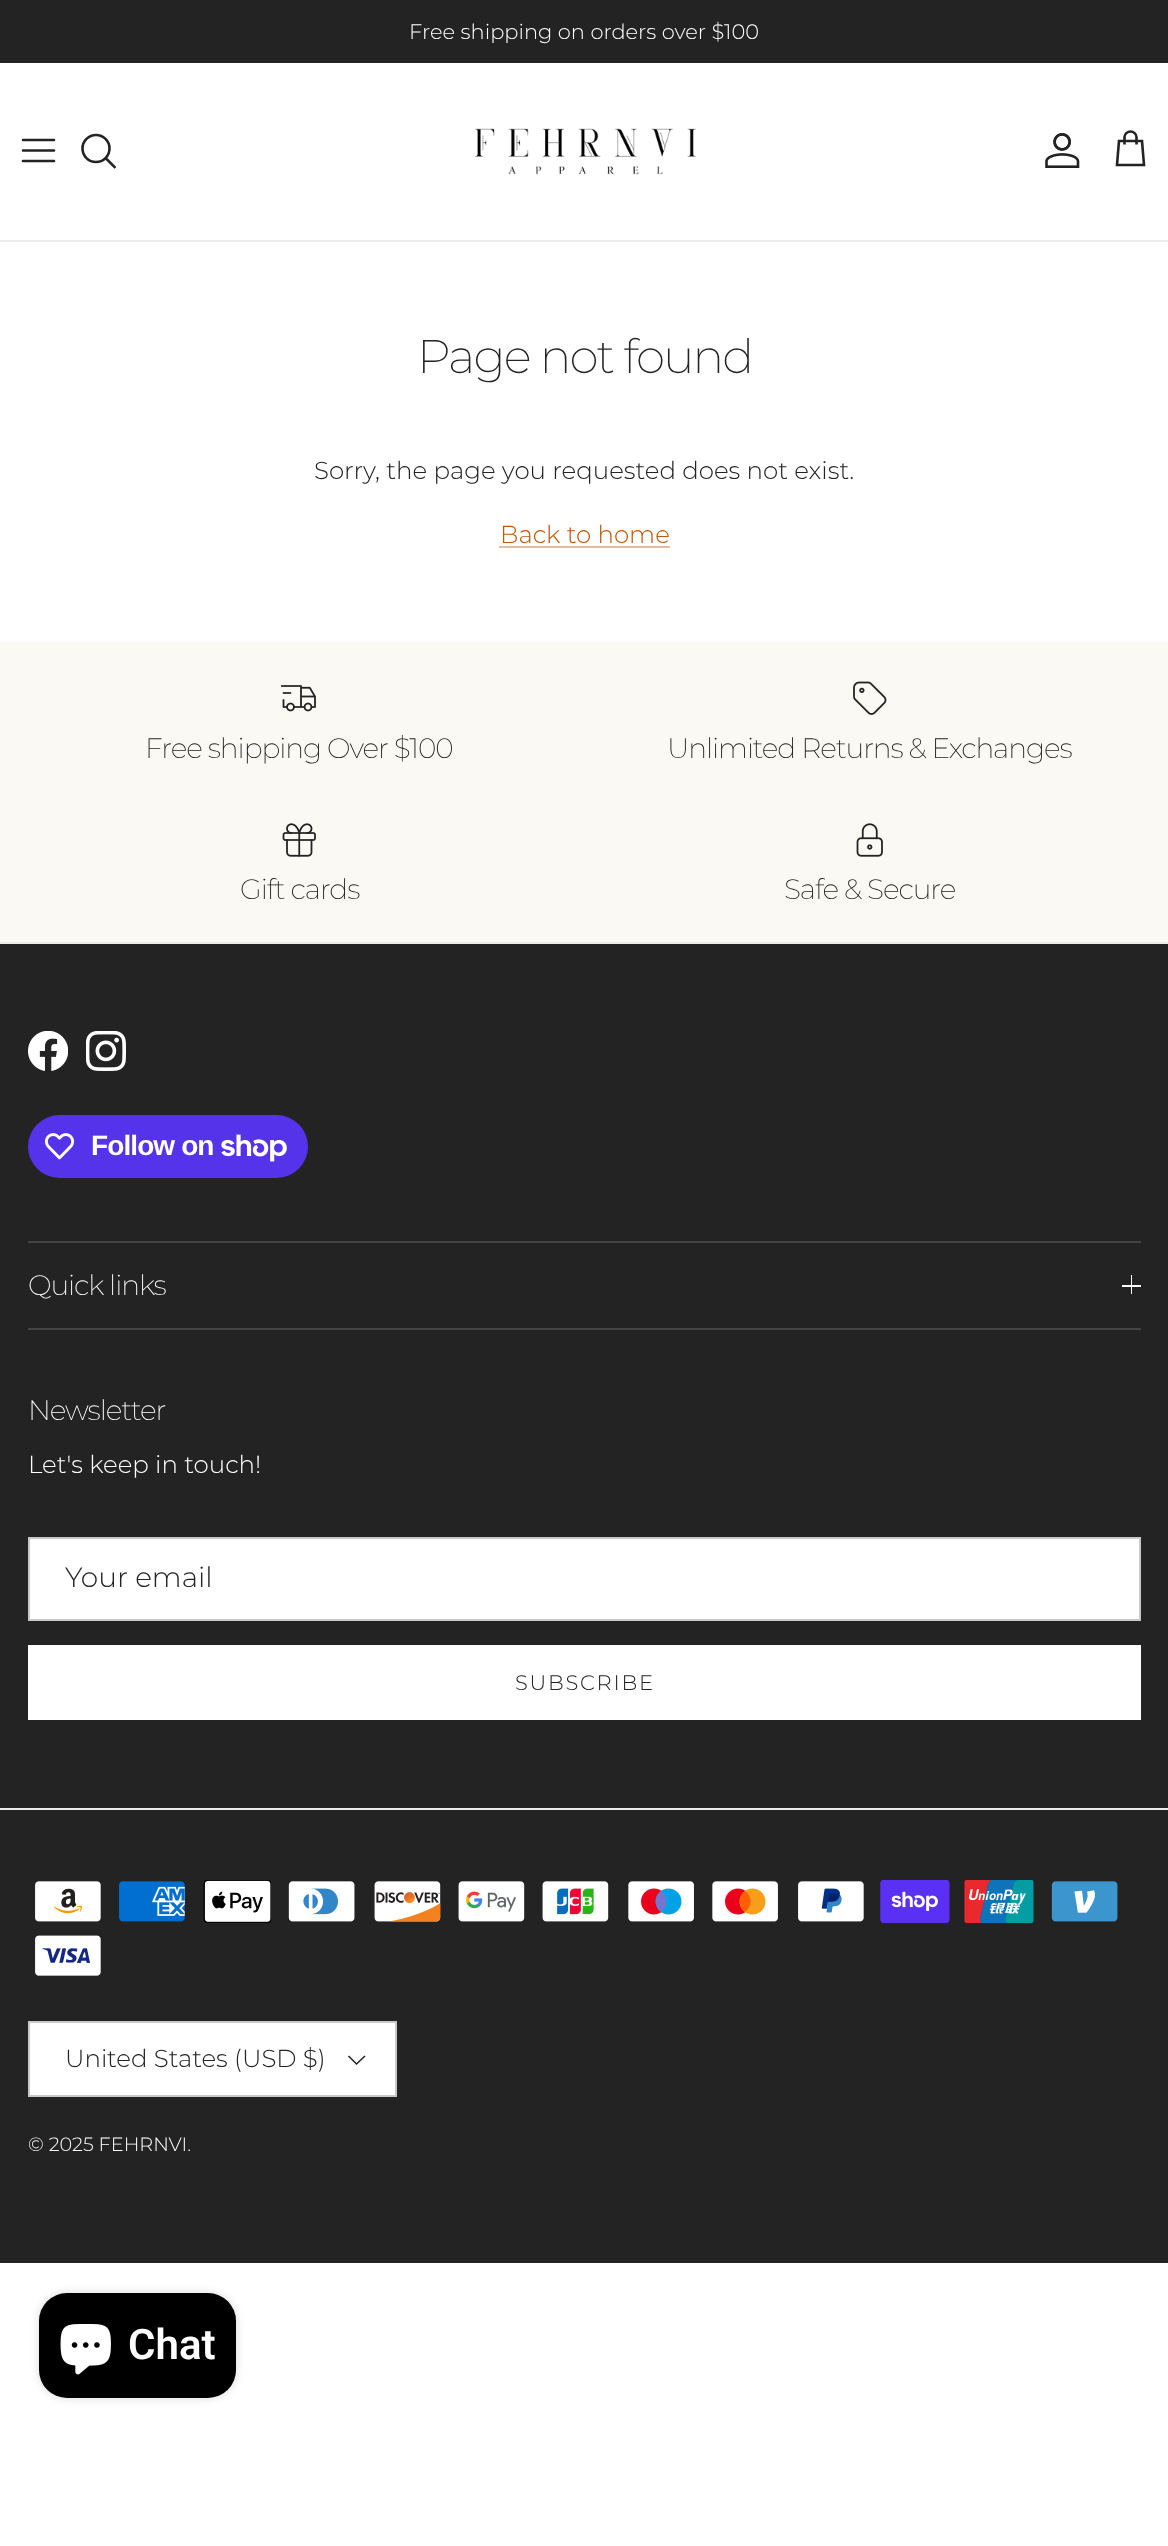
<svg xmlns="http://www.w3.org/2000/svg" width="1168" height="2546">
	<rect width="100%" height="100%" fill="#FFFFFF" />
	<rect x="0" y="0" width="1168" height="63" fill="#232323" />
	<text x="409" y="39" font-family="Montserrat" font-size="21" font-weight="300" fill="#FFFFFF">Free shipping on orders over $100</text>
	<rect x="0" y="240" width="1168" height="2" fill="#ECECEC" />
	<path d="M23 150.5H54M23 140H54M23 161H54" fill="none" stroke="#232323" stroke-width="2.6" stroke-linecap="round" stroke-linejoin="round" />
	<circle cx="96" cy="148.5" r="13.5" fill="none" stroke="#232323" stroke-width="2.6" />
	<path d="M106.5 159L114.5 167" fill="none" stroke="#232323" stroke-width="2.6" stroke-linecap="square" />
	<image x="475" y="128" width="221" height="47" href="assets/img1.png" />
	<image x="1045" y="133" width="35" height="35" href="assets/img2.png" />
	<path d="M1136.5 144.5V137C1136.5 134 1133.5 131.5 1130.5 131.5C1127.5 131.5 1124.5 134 1124.5 137V144.5M1119 141H1142L1144 165H1117Z" fill="none" stroke="#232323" stroke-width="2.6" />
	<text x="417" y="373" font-family="Montserrat" font-size="47.25" font-weight="200" letter-spacing="-1.9" fill="#232323">Page not found</text>
	<text x="314" y="479" font-family="Montserrat" font-size="24.5" font-weight="300" fill="#232323">Sorry, the page you requested does not exist.</text>
	<text x="500" y="543" font-family="Montserrat" font-size="24.5" font-weight="300" fill="#BF570A">Back to home</text>
	<rect x="499" y="546" width="171" height="2" fill="#E5BC9D" />
	<rect x="0" y="642" width="1168" height="300" fill="#FBF9F4" />
	<image x="280" y="685" width="36" height="27" href="assets/img3.png" />
	<text x="145" y="758" font-family="Montserrat" font-size="28.1" font-weight="200" letter-spacing="-1.1" fill="#232323">Free shipping Over $100</text>
	<image x="853" y="681" width="34" height="34" href="assets/img4.png" />
	<text x="667" y="758" font-family="Montserrat" font-size="28.1" font-weight="200" letter-spacing="-1.1" fill="#232323">Unlimited Returns &amp; Exchanges</text>
	<image x="282" y="823" width="34" height="34" href="assets/img5.png" />
	<text x="240" y="899" font-family="Montserrat" font-size="28.1" font-weight="200" letter-spacing="-1.1" fill="#232323">Gift cards</text>
	<image x="856" y="823" width="27" height="34" href="assets/img6.png" />
	<text x="784" y="899" font-family="Montserrat" font-size="28.1" font-weight="200" letter-spacing="-1.1" fill="#232323">Safe &amp; Secure</text>
	<rect x="0" y="944" width="1168" height="1319" fill="#232323" />
	<rect x="0" y="942" width="1168" height="2" fill="#ECECEC" />
	<image x="28" y="1031" width="40" height="40" href="assets/img7.png" />
	<image x="86" y="1031" width="40" height="40" href="assets/img8.png" />
	<rect x="28" y="1115" width="280" height="63" rx="31.5" fill="#5433EB" />
	<image x="44" y="1133" width="31" height="27" href="assets/img9.png" />
	<text x="91" y="1155" font-family="Liberation Sans" font-size="28" font-weight="700" letter-spacing="-0.9" fill="#FFFFFF">Follow on</text>
	<image x="221" y="1134" width="66" height="28" href="assets/img10.png" />
	<rect x="28" y="1241" width="1113" height="2" fill="#444444" />
	<rect x="28" y="1328" width="1113" height="2" fill="#444444" />
	<text x="28" y="1295" font-family="Montserrat" font-size="28.1" font-weight="200" letter-spacing="-1.1" fill="#FFFFFF">Quick links</text>
	<rect x="1131" y="1275" width="1" height="19" fill="#FFFFFF" />
	<rect x="1122" y="1285" width="19" height="2" fill="#FFFFFF" />
	<text x="28" y="1420" font-family="Montserrat" font-size="28.1" font-weight="200" letter-spacing="-1.1" fill="#FFFFFF">Newsletter</text>
	<text x="28" y="1473" font-family="Montserrat" font-size="24.5" font-weight="300" fill="#FFFFFF">Let's keep in touch!</text>
	<rect x="29" y="1538" width="1111" height="82" fill="#FFFFFF" stroke="#C8C8C8" stroke-width="2" />
	<text x="65" y="1587" font-family="Montserrat" font-size="28" font-weight="300" fill="#232323">Your email</text>
	<rect x="28" y="1645" width="1113" height="75" fill="#FFFFFF" />
	<text x="515" y="1690" font-family="Montserrat" font-size="21" font-weight="300" letter-spacing="1.75" fill="#232323">SUBSCRIBE</text>
	<rect x="0" y="1808" width="1168" height="2" fill="#ECECEC" />
	<image x="35" y="1881" width="66" height="41" href="assets/img11.png" />
	<image x="119" y="1881" width="66" height="41" href="assets/img12.png" />
	<image x="203" y="1880" width="68" height="43" href="assets/img13.png" />
	<image x="288" y="1881" width="67" height="41" href="assets/img14.png" />
	<image x="374" y="1881" width="67" height="41" href="assets/img15.png" />
	<image x="458" y="1881" width="67" height="41" href="assets/img16.png" />
	<image x="542" y="1881" width="67" height="41" href="assets/img17.png" />
	<image x="628" y="1881" width="66" height="41" href="assets/img18.png" />
	<image x="712" y="1881" width="66" height="41" href="assets/img19.png" />
	<image x="798" y="1881" width="66" height="41" href="assets/img20.png" />
	<image x="880" y="1880" width="70" height="43" href="assets/img21.png" />
	<image x="964" y="1880" width="70" height="43" href="assets/img22.png" />
	<image x="1051" y="1881" width="67" height="41" href="assets/img23.png" />
	<image x="35" y="1935" width="66" height="41" href="assets/img24.png" />
	<rect x="29" y="2022" width="367" height="74" fill="#FFFFFF" stroke="#C8C8C8" stroke-width="2" />
	<text x="65" y="2067" font-family="Montserrat" font-size="24.5" font-weight="300" fill="#232323">United States (USD $)</text>
	<path d="M365 2056L356.5 2064L348.5 2056" fill="none" stroke="#232323" stroke-width="1.6" />
	<text x="28" y="2151" font-family="Montserrat" font-size="19.25" font-weight="300" fill="#FFFFFF">© 2025 FEHRNVI.</text>
	<rect x="39" y="2293" width="197" height="105" rx="28" fill="#000000" fill-opacity="0.15" filter="blur(4.5px)" />
	<rect x="39" y="2293" width="197" height="105" rx="28" fill="#000000" />
	<image x="60" y="2324" width="51" height="51" href="assets/img25.png" />
	<text x="128" y="2359" font-family="Roboto" font-size="42" font-weight="600" fill="#FFFFFF">Chat</text>
</svg>
